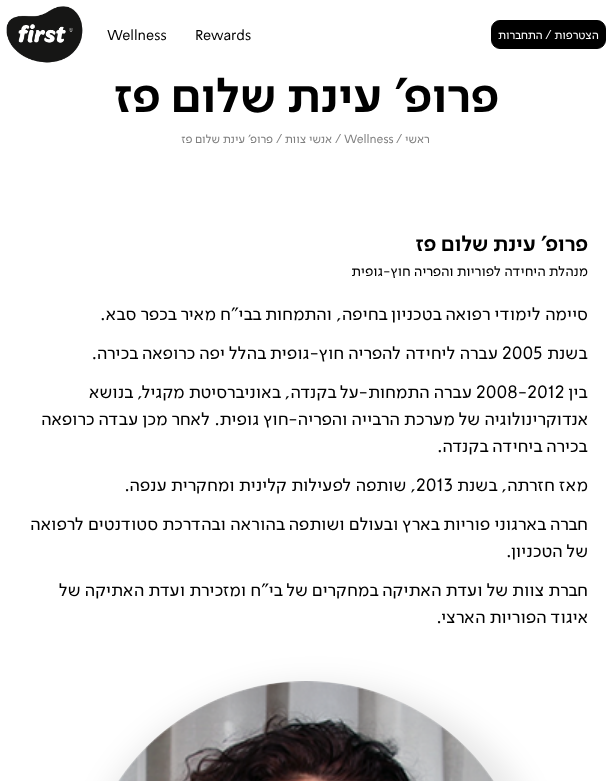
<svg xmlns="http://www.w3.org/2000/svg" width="612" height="781">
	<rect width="100%" height="100%" fill="#FFFFFF" />
	<rect x="491.5" y="20.5" width="114" height="28" rx="8.5" fill="#000000" stroke="#000000" />
	<text x="599" y="39" font-family="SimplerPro" font-size="12" direction="rtl" fill="#FFFFFF">הצטרפות / התחברות</text>
	<g font-family="SimplerPro" font-size="14.4" fill="#000000">
		<text x="195" y="40">Rewards</text>
		<text x="107" y="40">Wellness</text>
	</g>
	<image x="6" y="6" width="77" height="57" href="assets/img1.png" />
	<text x="499" y="112" font-family="SimplerPro" font-size="48" font-weight="700" direction="rtl" fill="#000000">פרופ' עינת שלום פז</text>
	<text x="430" y="143" font-family="SimplerPro" font-size="12" direction="rtl" fill="#808080">ראשי</text>
	<g font-family="SimplerPro" font-size="12" fill="#808080">
		<text x="396" y="143">/</text>
		<text x="344" y="143">Wellness</text>
		<text x="335" y="143">/</text>
	</g>
	<text x="332" y="143" font-family="SimplerPro" font-size="12" direction="rtl" fill="#808080">אנשי צוות</text>
	<text x="276" y="143" font-family="SimplerPro" font-size="12" fill="#808080">/</text>
	<text x="273" y="143" font-family="SimplerPro" font-size="12" direction="rtl" fill="#808080">פרופ' עינת שלום פז</text>
	<text x="588" y="251" font-family="SimplerPro" font-size="21.5" font-weight="700" direction="rtl" fill="#000000">פרופ' עינת שלום פז</text>
	<text x="588" y="276" font-family="SimplerPro" font-size="14.4" direction="rtl" fill="#000000">מנהלת היחידה לפוריות והפריה חוץ-גופית</text>
	<g font-family="SimplerPro" font-size="18" direction="rtl" fill="#000000">
		<text x="588" y="320">סיימה לימודי רפואה בטכניון בחיפה, והתמחות בבי"ח מאיר בכפר סבא.</text>
		<text x="588" y="359">בשנת</text>
	</g>
	<text x="502" y="359" font-family="SimplerPro" font-size="18" fill="#000000">2005</text>
	<g font-family="SimplerPro" font-size="18" direction="rtl" fill="#000000">
		<text x="498" y="359">עברה ליחידה להפריה חוץ-גופית בהלל יפה כרופאה בכירה.</text>
		<text x="588" y="398">בין</text>
	</g>
	<text x="476" y="398" font-family="SimplerPro" font-size="18" fill="#000000">2008-2012</text>
	<g font-family="SimplerPro" font-size="18" direction="rtl" fill="#000000">
		<text x="472" y="398">עברה התמחות-על בקנדה, באוניברסיטת מקגיל, בנושא</text>
		<text x="588" y="425">אנדוקרינולוגיה של מערכת הרבייה והפריה-חוץ גופית. לאחר מכן עבדה כרופאה</text>
		<text x="588" y="452">בכירה ביחידה בקנדה.</text>
		<text x="588" y="491">מאז חזרתה, בשנת</text>
	</g>
	<text x="416" y="491" font-family="SimplerPro" font-size="18" fill="#000000">2013</text>
	<g font-family="SimplerPro" font-size="18" direction="rtl" fill="#000000">
		<text x="416" y="491">, שותפה לפעילות קלינית ומחקרית ענפה.</text>
		<text x="588" y="530">חברה בארגוני פוריות בארץ ובעולם ושותפה בהוראה ובהדרכת סטודנטים לרפואה</text>
		<text x="588" y="557">של הטכניון.</text>
		<text x="588" y="596">חברת צוות של ועדת האתיקה במחקרים של בי"ח ומזכירת ועדת האתיקה של</text>
		<text x="588" y="623">איגוד הפוריות הארצי.</text>
	</g>
	<rect x="90" y="684" width="452" height="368" rx="226" fill="#000000" fill-opacity="0.09" filter="blur(15px)" />
	<image x="118" y="681" width="376" height="100" href="assets/img2.png" />
</svg>
